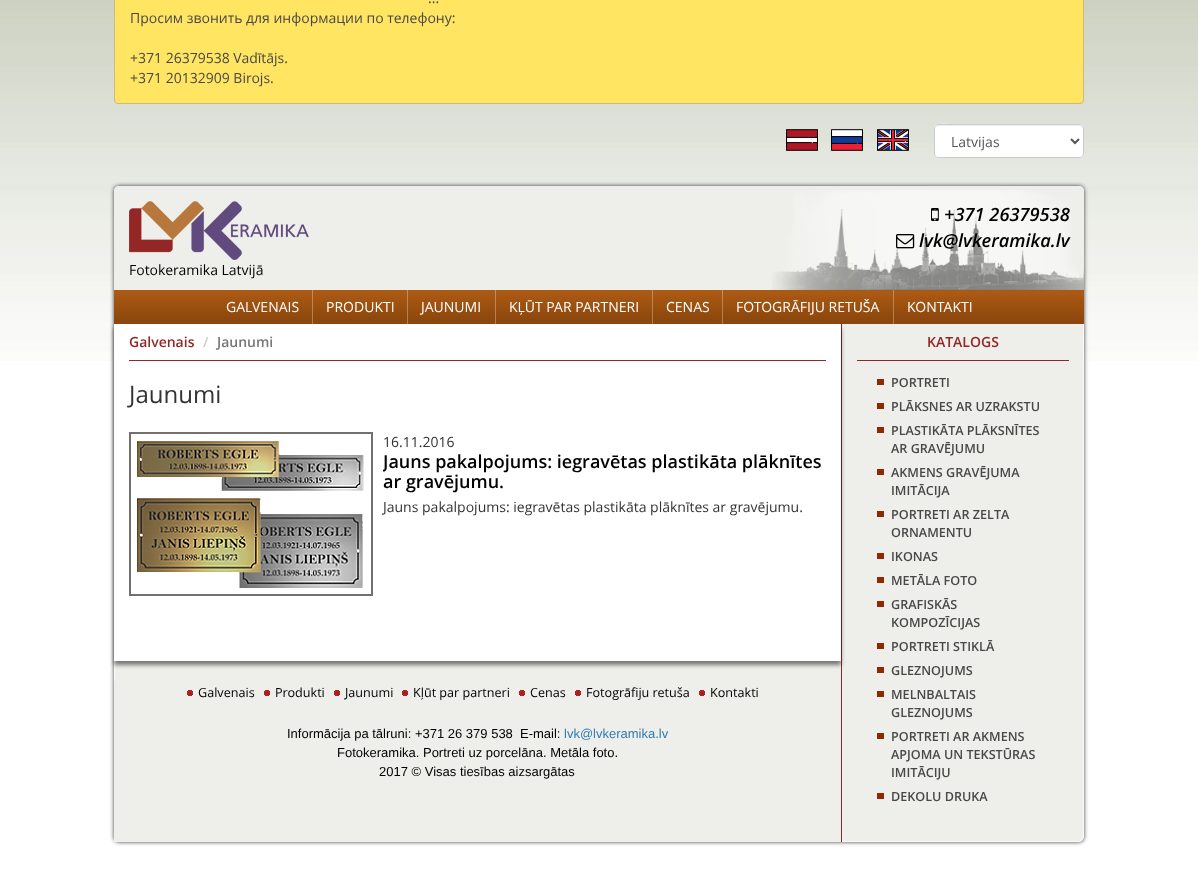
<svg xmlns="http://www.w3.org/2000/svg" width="1198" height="882">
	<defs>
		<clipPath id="clip1"><rect x="383" y="432" width="443" height="164" /></clipPath>
	</defs>
	<rect width="100%" height="100%" fill="#FFFFFF" />
	<image x="0" y="0" width="1198" height="361" href="assets/img1.png" />
	<rect x="114.5" y="-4.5" width="969" height="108" rx="3.5" fill="#FFE561" stroke="#D0B680" />
	<g font-family="Open Sans" font-size="14" fill="#484848">
		<text x="428" y="3">...</text>
		<text x="130" y="23">Просим звонить для информации по телефону:</text>
		<text x="130" y="63">+371 26379538 Vadītājs.</text>
		<text x="130" y="83">+371 20132909 Birojs.</text>
	</g>
	<image x="786" y="129" width="32" height="22" href="assets/img2.png" />
	<image x="831" y="129" width="32" height="22" href="assets/img3.png" />
	<image x="877" y="129" width="32" height="22" href="assets/img4.png" />
	<rect x="934" y="124" width="150" height="34" rx="4" fill="#FFFFFF" />
	<path d="M938 126H1080C1082 126 1083 127 1083 129C1083 127 1083 126 1081 125H962C954 125 935 120 935 129C935 127 936 126 938 126Z" fill="#ECECEC" />
	<rect x="934.5" y="124.5" width="149" height="33" rx="3.5" fill="none" stroke="#CCCCCC" />
	<path d="M1071 139L1075 143L1079 139" fill="none" stroke="#555555" stroke-width="2" />
	<text x="951" y="147" font-family="Open Sans" font-size="14" fill="#555555">Latvijas</text>
	<rect x="114" y="186" width="970" height="656" rx="5" fill="#000000" fill-opacity="0.77" filter="blur(2px)" />
	<rect x="114.5" y="186.5" width="969" height="655" rx="4.5" fill="#EEEFEA" stroke="#FBFBFA" />
	<path d="M119 186H1079C1082 186 1084 188 1084 191V290H114V191C114 188 116 186 119 186Z" fill="#EEEFEA" />
	<image x="772" y="189" width="312" height="101" href="assets/img5.png" />
	<image x="931" y="208" width="8" height="13" href="assets/img6.png" />
	<text x="944" y="221" font-family="Open Sans" font-size="18.25" font-weight="600" font-style="italic" fill="#000000">+371 26379538</text>
	<image x="896" y="234" width="19" height="15" href="assets/img7.png" />
	<text x="919" y="247" font-family="Open Sans" font-size="18.25" font-weight="600" font-style="italic" fill="#000000">lvk@lvkeramika.lv</text>
	<image x="129" y="201" width="180" height="59" href="assets/img8.png" />
	<text x="129" y="275" font-family="Open Sans" font-size="14" fill="#000000">Fotokeramika Latvijā</text>
	<image x="114" y="290" width="970" height="34" href="assets/img9.png" />
	<rect x="312" y="290" width="1" height="34" fill="#FFFFFF" fill-opacity="0.3" />
	<text x="226" y="312" font-family="Open Sans" font-size="14" fill="#FFFFFF">GALVENAIS</text>
	<rect x="407" y="290" width="1" height="34" fill="#FFFFFF" fill-opacity="0.3" />
	<text x="326" y="312" font-family="Open Sans" font-size="14" fill="#FFFFFF">PRODUKTI</text>
	<rect x="495" y="290" width="1" height="34" fill="#FFFFFF" fill-opacity="0.3" />
	<text x="421" y="312" font-family="Open Sans" font-size="14" fill="#FFFFFF">JAUNUMI</text>
	<rect x="652" y="290" width="1" height="34" fill="#FFFFFF" fill-opacity="0.3" />
	<text x="509" y="312" font-family="Open Sans" font-size="14" fill="#FFFFFF">KĻŪT PAR PARTNERI</text>
	<rect x="722" y="290" width="1" height="34" fill="#FFFFFF" fill-opacity="0.3" />
	<text x="666" y="312" font-family="Open Sans" font-size="14" fill="#FFFFFF">СENAS</text>
	<rect x="893" y="290" width="1" height="34" fill="#FFFFFF" fill-opacity="0.3" />
	<g font-family="Open Sans" font-size="14" fill="#FFFFFF">
		<text x="736" y="312">FOTOGRĀFIJU RETUŠA</text>
		<text x="907" y="312">KONTAKTI</text>
	</g>
	<rect x="841" y="324" width="1" height="518" fill="#932727" />
	<rect x="114" y="328" width="727" height="337" fill="#000000" fill-opacity="0.5" filter="blur(2px)" />
	<rect x="114" y="324" width="727" height="337" fill="#FFFFFF" />
	<rect x="129" y="360" width="697" height="1" fill="#932727" />
	<text x="129" y="347" font-family="Open Sans" font-size="14" font-weight="600" fill="#932727">Galvenais</text>
	<text x="203" y="347" font-family="Open Sans" font-size="14" font-weight="600" fill="#CCCCCC">/</text>
	<text x="217" y="347" font-family="Open Sans" font-size="14" font-weight="600" fill="#777777">Jaunumi</text>
	<text x="129" y="403" font-family="Open Sans" font-size="24" fill="#333333">Jaunumi</text>
	<rect x="130" y="433" width="242" height="162" fill="none" stroke="#73716F" stroke-width="2" />
	<image x="137" y="441" width="227" height="147" href="assets/img10.png" />
	<text x="383" y="447" font-family="Open Sans" font-size="14" fill="#333333">16.11.2016</text>
	<g clip-path="url(#clip1)">
		<text x="383" y="468" font-family="Open Sans" font-size="18" font-weight="600" fill="#000000">Jauns pakalpojums: iegravētas plastikāta plāknītes</text>
	</g>
	<text x="383" y="488" font-family="Open Sans" font-size="18" font-weight="600" fill="#000000">ar gravējumu.</text>
	<text x="383" y="512" font-family="Open Sans" font-size="14" fill="#333333">Jauns pakalpojums: iegravētas plastikāta plāknītes ar gravējumu.</text>
	<rect x="114" y="681" width="727" height="161" fill="#EEEFEA" />
	<image x="187" y="690" width="6" height="6" href="assets/img11.png" />
	<text x="198" y="697" font-family="Open Sans" font-size="12.6" fill="#000000">Galvenais</text>
	<image x="264" y="690" width="6" height="6" href="assets/img11.png" />
	<text x="275" y="697" font-family="Open Sans" font-size="12.6" fill="#000000">Produkti</text>
	<image x="334" y="690" width="6" height="6" href="assets/img11.png" />
	<text x="345" y="697" font-family="Open Sans" font-size="12.6" fill="#000000">Jaunumi</text>
	<image x="402" y="690" width="6" height="6" href="assets/img11.png" />
	<text x="413" y="697" font-family="Open Sans" font-size="12.6" fill="#000000">Kļūt par partneri</text>
	<image x="519" y="690" width="6" height="6" href="assets/img11.png" />
	<text x="530" y="697" font-family="Open Sans" font-size="12.6" fill="#000000">Сenas</text>
	<image x="575" y="690" width="6" height="6" href="assets/img11.png" />
	<text x="586" y="697" font-family="Open Sans" font-size="12.6" fill="#000000">Fotogrāfiju retuša</text>
	<image x="699" y="690" width="6" height="6" href="assets/img11.png" />
	<text x="710" y="697" font-family="Open Sans" font-size="12.6" fill="#000000">Kontakti</text>
	<g font-family="Liberation Sans" font-size="13" fill="#000000">
		<text x="287" y="738">Informācija pa tālruni: +371 26 379 538</text>
		<text x="520" y="738">E-mail:</text>
	</g>
	<text x="564" y="738" font-family="Liberation Sans" font-size="13" fill="#337AB7">lvk@lvkeramika.lv</text>
	<g font-family="Liberation Sans" font-size="13" fill="#000000">
		<text x="337" y="757">Fotokeramika. Portreti uz porcelāna. Metāla foto.</text>
		<text x="379" y="776">2017 © Visas tiesības aizsargātas</text>
	</g>
	<rect x="857" y="360" width="212" height="1" fill="#932727" />
	<text x="927" y="347" font-family="Open Sans" font-size="14" font-weight="600" fill="#932727">KATALOGS</text>
	<rect x="877" y="379" width="7" height="6" fill="#8D2A00" />
	<text x="891" y="387" font-family="Open Sans" font-size="12.6" font-weight="600" fill="#484848">PORTRETI</text>
	<rect x="877" y="403" width="7" height="6" fill="#8D2A00" />
	<text x="891" y="411" font-family="Open Sans" font-size="12.6" font-weight="600" fill="#484848">PLĀKSNES AR UZRAKSTU</text>
	<rect x="877" y="427" width="7" height="6" fill="#8D2A00" />
	<g font-family="Open Sans" font-size="12.6" font-weight="600" fill="#484848">
		<text x="891" y="435">PLASTIKĀTA PLĀKSNĪTES</text>
		<text x="891" y="453">AR GRAVĒJUMU</text>
	</g>
	<rect x="877" y="469" width="7" height="6" fill="#8D2A00" />
	<g font-family="Open Sans" font-size="12.6" font-weight="600" fill="#484848">
		<text x="891" y="477">AKMENS GRAVĒJUMA</text>
		<text x="891" y="495">IMITĀCIJA</text>
	</g>
	<rect x="877" y="511" width="7" height="6" fill="#8D2A00" />
	<g font-family="Open Sans" font-size="12.6" font-weight="600" fill="#484848">
		<text x="891" y="519">PORTRETI AR ZELTA</text>
		<text x="891" y="537">ORNAMENTU</text>
	</g>
	<rect x="877" y="553" width="7" height="6" fill="#8D2A00" />
	<text x="891" y="561" font-family="Open Sans" font-size="12.6" font-weight="600" fill="#484848">IKONAS</text>
	<rect x="877" y="577" width="7" height="6" fill="#8D2A00" />
	<text x="891" y="585" font-family="Open Sans" font-size="12.6" font-weight="600" fill="#484848">METĀLA FOTO</text>
	<rect x="877" y="601" width="7" height="6" fill="#8D2A00" />
	<g font-family="Open Sans" font-size="12.6" font-weight="600" fill="#484848">
		<text x="891" y="609">GRAFISKĀS</text>
		<text x="891" y="627">KOMPOZĪCIJAS</text>
	</g>
	<rect x="877" y="643" width="7" height="6" fill="#8D2A00" />
	<text x="891" y="651" font-family="Open Sans" font-size="12.6" font-weight="600" fill="#484848">PORTRETI STIKLĀ</text>
	<rect x="877" y="667" width="7" height="6" fill="#8D2A00" />
	<text x="891" y="675" font-family="Open Sans" font-size="12.6" font-weight="600" fill="#484848">GLEZNOJUMS</text>
	<rect x="877" y="691" width="7" height="6" fill="#8D2A00" />
	<g font-family="Open Sans" font-size="12.6" font-weight="600" fill="#484848">
		<text x="891" y="699">MELNBALTAIS</text>
		<text x="891" y="717">GLEZNOJUMS</text>
	</g>
	<rect x="877" y="733" width="7" height="6" fill="#8D2A00" />
	<g font-family="Open Sans" font-size="12.6" font-weight="600" fill="#484848">
		<text x="891" y="741">PORTRETI AR AKMENS</text>
		<text x="891" y="759">APJOMA UN TEKSTŪRAS</text>
		<text x="891" y="777">IMITĀCIJU</text>
	</g>
	<rect x="877" y="793" width="7" height="6" fill="#8D2A00" />
	<text x="891" y="801" font-family="Open Sans" font-size="12.6" font-weight="600" fill="#484848">DEKOLU DRUKA</text>
</svg>
